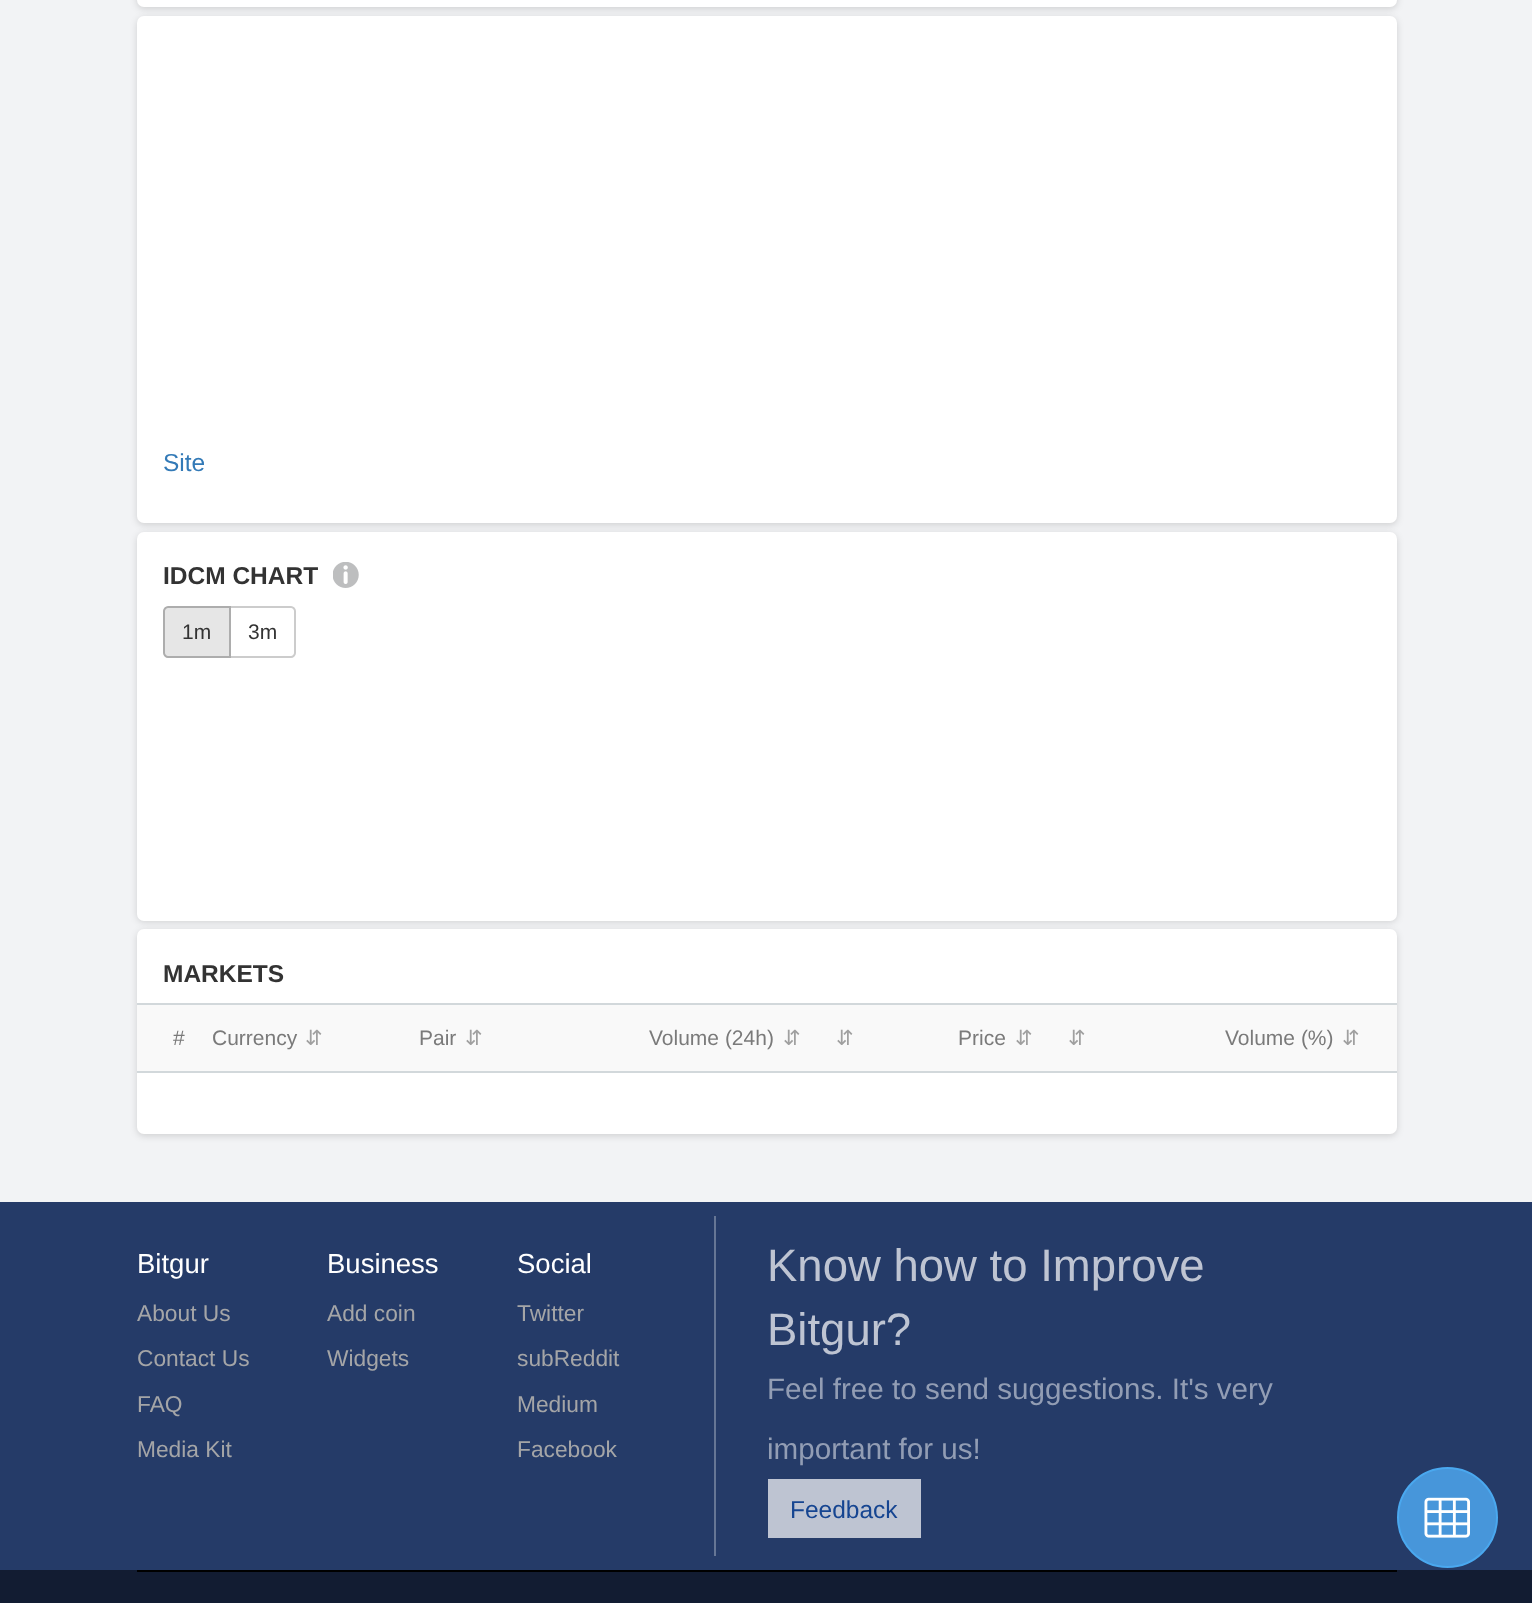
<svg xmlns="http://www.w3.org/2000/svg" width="1532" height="1603">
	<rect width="100%" height="100%" fill="#F2F3F5" />
	<rect x="137" y="-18" width="1260" height="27" rx="7" fill="#000000" fill-opacity="0.14" filter="blur(3.5px)" />
	<rect x="137" y="-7" width="1260" height="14" rx="7" fill="#FFFFFF" />
	<rect x="137" y="18" width="1260" height="507" rx="7" fill="#000000" fill-opacity="0.14" filter="blur(3.5px)" />
	<rect x="137" y="16" width="1260" height="507" rx="7" fill="#FFFFFF" />
	<text x="163" y="471" font-family="Liberation Sans" font-size="24.5" fill="#337AB7">Site</text>
	<rect x="137" y="534" width="1260" height="388" rx="7" fill="#000000" fill-opacity="0.14" filter="blur(3.5px)" />
	<rect x="137" y="532" width="1260" height="389" rx="7" fill="#FFFFFF" />
	<text x="163" y="584" font-family="Liberation Sans" font-size="24.5" font-weight="700" fill="#333333">IDCM CHART</text>
	<image x="333" y="562" width="26" height="26" href="assets/img1.png" />
	<path d="M230 607H291C293 607 295 609 295 611V653C295 655 293 657 291 657H230Z" fill="none" stroke="#CCCCCC" stroke-width="2" />
	<path d="M168 607H230V657H168C166 657 164 655 164 653V611C164 609 166 607 168 607Z" fill="#E6E6E6" stroke="#ADADAD" stroke-width="2" />
	<g font-family="Liberation Sans" font-size="21" fill="#333333">
		<text x="182" y="639">1m</text>
		<text x="248" y="639">3m</text>
	</g>
	<rect x="137" y="931" width="1260" height="205" rx="7" fill="#000000" fill-opacity="0.14" filter="blur(3.5px)" />
	<rect x="137" y="929" width="1260" height="205" rx="7" fill="#FFFFFF" />
	<text x="163" y="982" font-family="Liberation Sans" font-size="24.5" font-weight="700" fill="#333333">MARKETS</text>
	<rect x="137" y="1005" width="1260" height="66" fill="#F9F9F9" />
	<rect x="137" y="1003" width="1260" height="2" fill="#D2D8DB" />
	<rect x="137" y="1071" width="1260" height="2" fill="#D2D8DB" />
	<g font-family="Liberation Sans" font-size="21" fill="#7A7A7A">
		<text x="173" y="1045">#</text>
		<text x="212" y="1045">Currency</text>
	</g>
	<text x="305" y="1045" font-family="DejaVu Sans" font-size="21" fill="#A0A0A0">⇵</text>
	<text x="419" y="1045" font-family="Liberation Sans" font-size="21" fill="#7A7A7A">Pair</text>
	<text x="465" y="1045" font-family="DejaVu Sans" font-size="21" fill="#A0A0A0">⇵</text>
	<text x="649" y="1045" font-family="Liberation Sans" font-size="21" fill="#7A7A7A">Volume (24h)</text>
	<g font-family="DejaVu Sans" font-size="21" fill="#A0A0A0">
		<text x="783" y="1045">⇵</text>
		<text x="836" y="1045">⇵</text>
	</g>
	<text x="958" y="1045" font-family="Liberation Sans" font-size="21" fill="#7A7A7A">Price</text>
	<g font-family="DejaVu Sans" font-size="21" fill="#A0A0A0">
		<text x="1015" y="1045">⇵</text>
		<text x="1068" y="1045">⇵</text>
	</g>
	<text x="1225" y="1045" font-family="Liberation Sans" font-size="21" fill="#7A7A7A">Volume (%)</text>
	<text x="1342" y="1045" font-family="DejaVu Sans" font-size="21" fill="#A0A0A0">⇵</text>
	<rect x="0" y="1570" width="1532" height="33" fill="#121C32" />
	<rect x="0" y="1202" width="1532" height="368" fill="#253B68" />
	<text x="137" y="1273" font-family="Liberation Sans" font-size="27.5" fill="#FFFFFF">Bitgur</text>
	<g font-family="Liberation Sans" font-size="22.75" fill="#A4A5A7">
		<text x="137" y="1321">About Us</text>
		<text x="137" y="1366">Contact Us</text>
		<text x="137" y="1412">FAQ</text>
		<text x="137" y="1457">Media Kit</text>
	</g>
	<text x="327" y="1273" font-family="Liberation Sans" font-size="27.5" fill="#FFFFFF">Business</text>
	<g font-family="Liberation Sans" font-size="22.75" fill="#A4A5A7">
		<text x="327" y="1321">Add coin</text>
		<text x="327" y="1366">Widgets</text>
	</g>
	<text x="517" y="1273" font-family="Liberation Sans" font-size="27.5" fill="#FFFFFF">Social</text>
	<g font-family="Liberation Sans" font-size="22.75" fill="#A4A5A7">
		<text x="517" y="1321">Twitter</text>
		<text x="517" y="1366">subReddit</text>
		<text x="517" y="1412">Medium</text>
		<text x="517" y="1457">Facebook</text>
	</g>
	<rect x="714" y="1216" width="2" height="340" fill="#667695" />
	<g font-family="Liberation Sans" font-size="45.5" fill="#BEC4D2">
		<text x="767" y="1281">Know how to Improve</text>
		<text x="767" y="1345">Bitgur?</text>
	</g>
	<g font-family="Liberation Sans" font-size="29.6" fill="#929DB4">
		<text x="767" y="1399">Feel free to send suggestions. It's very</text>
		<text x="767" y="1459">important for us!</text>
	</g>
	<rect x="768" y="1479" width="153" height="59" fill="#BEC4D2" />
	<text x="790" y="1518" font-family="Liberation Sans" font-size="24.5" fill="#164591">Feedback</text>
	<rect x="137" y="1570" width="1260" height="2" fill="#000000" />
	<circle cx="1447.5" cy="1517.5" r="49.5" fill="#4796DA" stroke="#4AA8EF" stroke-width="2" />
	<image x="1424" y="1497" width="46" height="41" href="assets/img2.png" />
</svg>
